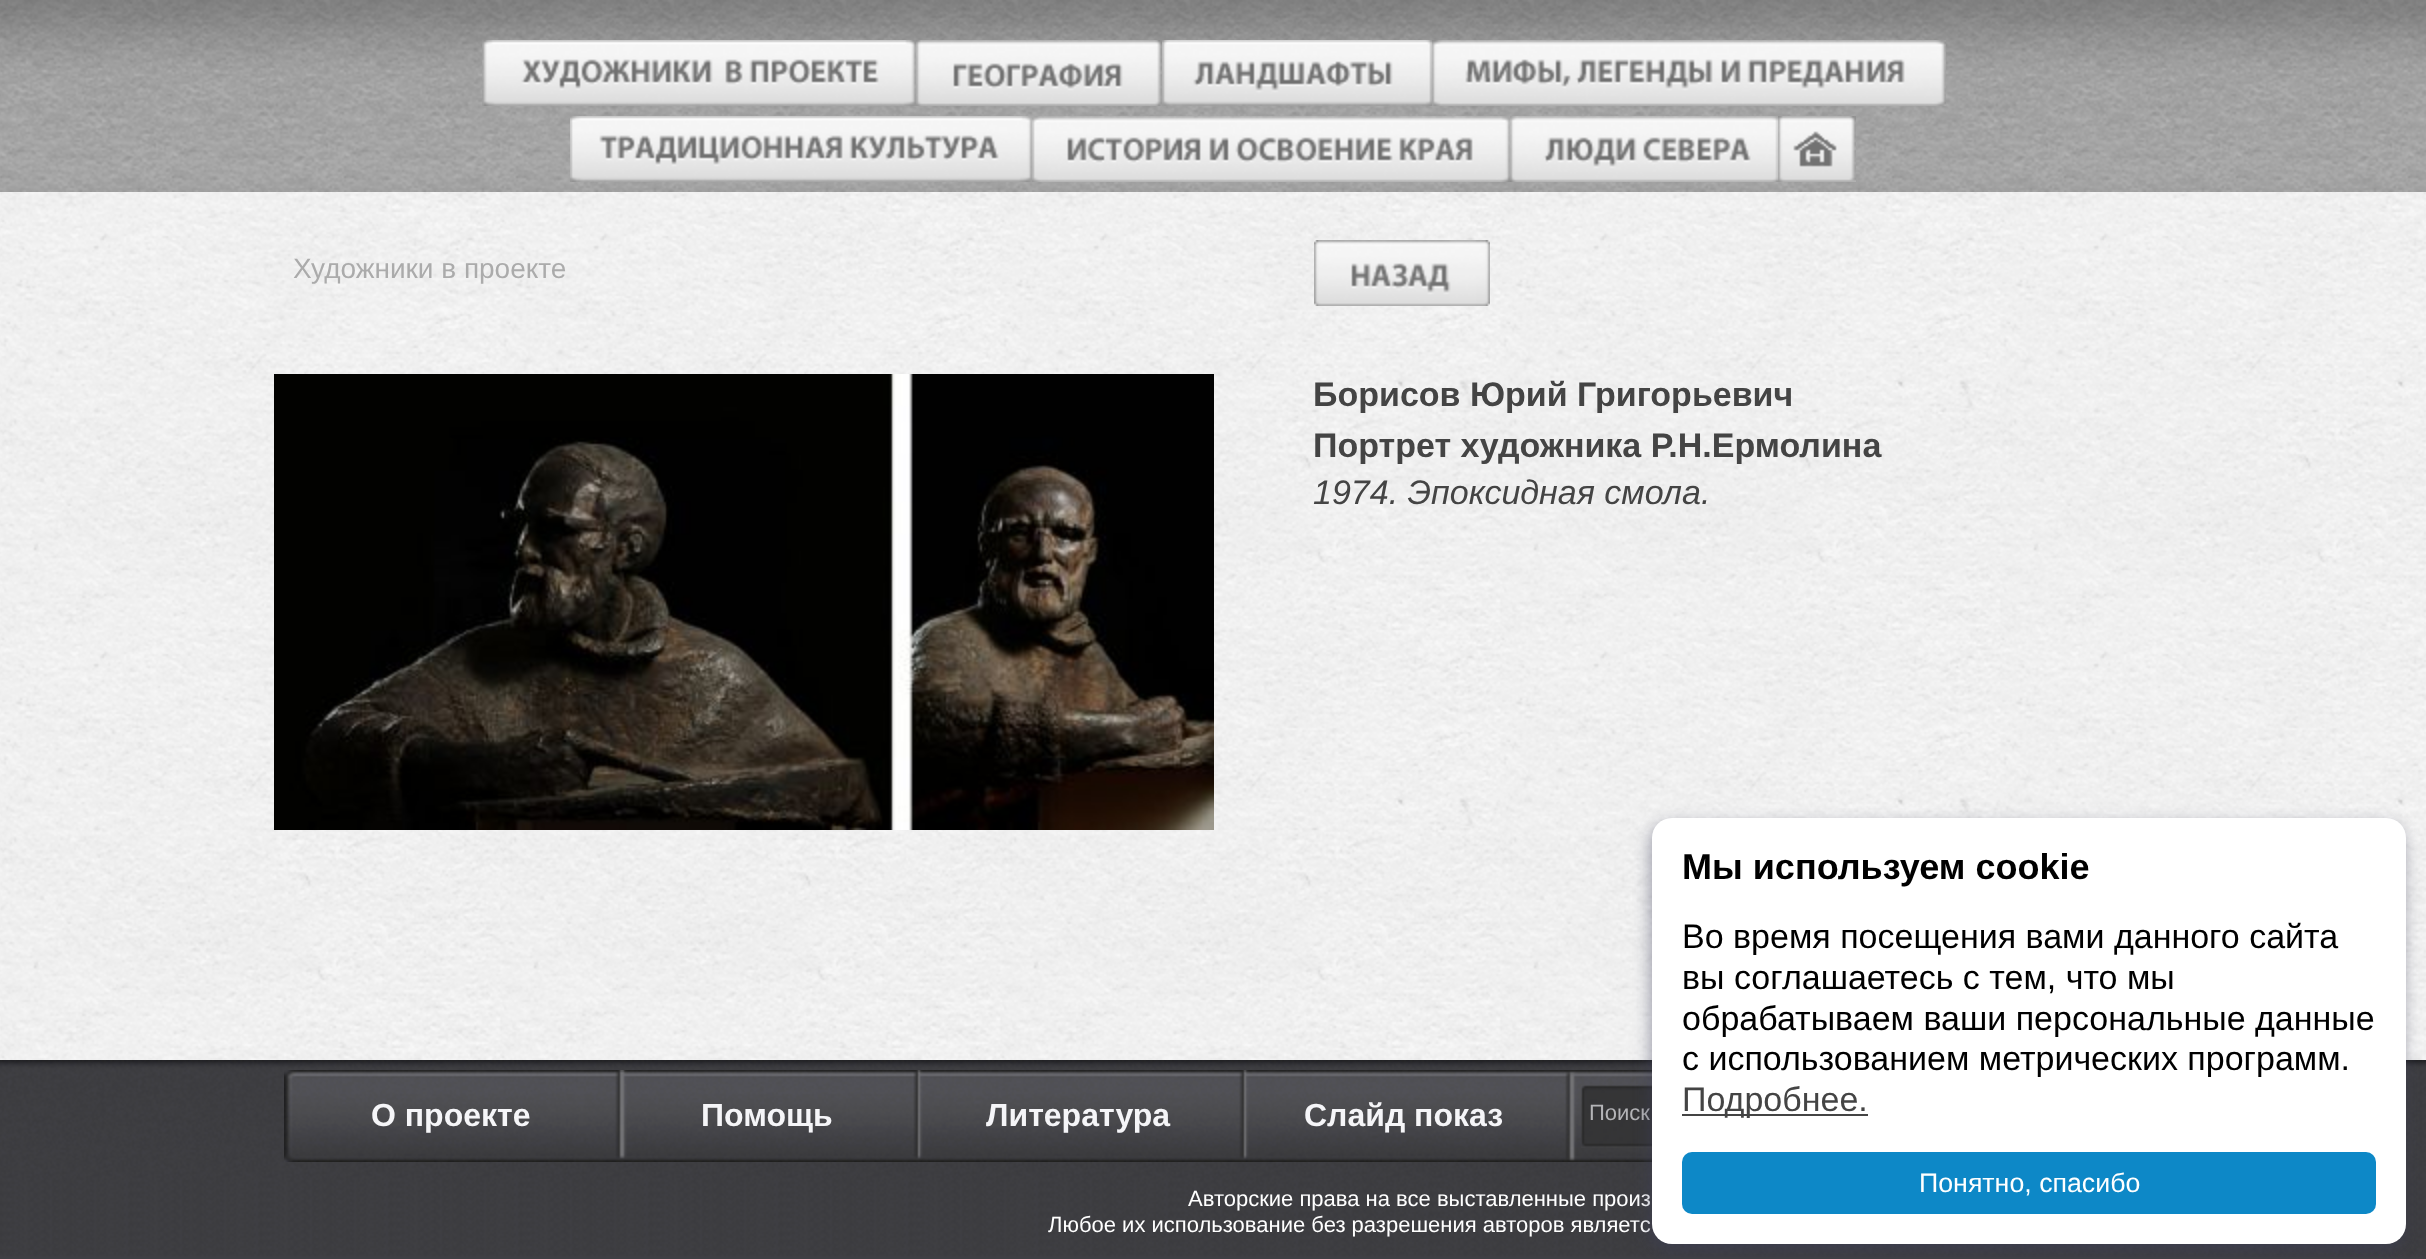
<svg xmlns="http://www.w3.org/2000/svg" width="2426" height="1259">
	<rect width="100%" height="100%" fill="#FFFFFF" />
	<image x="0" y="192" width="2426" height="868" href="assets/img1.png" />
	<image x="0" y="0" width="2426" height="192" href="assets/img2.png" />
	<image x="482" y="40" width="434" height="66" href="assets/img3.png" />
	<image x="916" y="40" width="246" height="66" href="assets/img4.png" />
	<image x="1162" y="40" width="270" height="66" href="assets/img5.png" />
	<image x="1432" y="40" width="514" height="66" href="assets/img6.png" />
	<image x="570" y="116" width="462" height="66" href="assets/img7.png" />
	<image x="1032" y="116" width="478" height="66" href="assets/img8.png" />
	<image x="1510" y="116" width="268" height="66" href="assets/img9.png" />
	<image x="1778" y="116" width="78" height="66" href="assets/img10.png" />
	<text x="293" y="278" font-family="Liberation Sans" font-size="28" fill="#ABABAB">Художники в проекте</text>
	<image x="274" y="374" width="940" height="456" href="assets/img11.png" />
	<image x="1314" y="240" width="176" height="66" href="assets/img12.png" />
	<g font-family="Liberation Sans" font-size="34" font-weight="700" fill="#444444">
		<text x="1313" y="406">Борисов Юрий Григорьевич</text>
		<text x="1313" y="457">Портрет художника Р.Н.Ермолина</text>
	</g>
	<text x="1313" y="504" font-family="Liberation Sans" font-size="34" font-style="italic" fill="#444444">1974. Эпоксидная смола.</text>
	<image x="0" y="1060" width="2426" height="199" href="assets/img13.png" />
	<image x="284" y="1070" width="1368" height="92" href="assets/img14.png" />
	<g font-family="Liberation Sans" font-size="32" font-weight="700" fill="#F5F5F8">
		<text x="371" y="1126">О проекте</text>
		<text x="701" y="1126">Помощь</text>
		<text x="986" y="1126">Литература</text>
		<text x="1304" y="1126">Слайд показ</text>
	</g>
	<image x="1581" y="1085" width="71" height="63" href="assets/img15.png" />
	<text x="1589" y="1120" font-family="Liberation Sans" font-size="22" fill="#B4B4B7">Поиск</text>
	<g font-family="Liberation Sans" font-size="22" fill="#FFFFFF">
		<text x="1188" y="1206">Авторские права на все выставленные произ</text>
		<text x="1048" y="1232">Любое их использование без разрешения авторов являетс</text>
	</g>
	<rect x="1650" y="824" width="754" height="426" rx="20" fill="#3D3E5D" fill-opacity="0.48" filter="blur(8px)" />
	<rect x="1652" y="818" width="754" height="426" rx="20" fill="#FFFFFF" />
	<text x="1682" y="879" font-family="Liberation Sans" font-size="36" font-weight="700" fill="#000000">Мы используем cookie</text>
	<g font-family="Liberation Sans" font-size="34" fill="#000000">
		<text x="1682" y="948">Во время посещения вами данного сайта</text>
		<text x="1682" y="989">вы соглашаетесь с тем, что мы</text>
		<text x="1682" y="1030">обрабатываем ваши персональные данные</text>
		<text x="1682" y="1070">с использованием метрических программ.</text>
	</g>
	<rect x="1682" y="1114" width="186" height="2" fill="#444444" />
	<text x="1682" y="1111" font-family="Liberation Sans" font-size="34" fill="#444444">Подробнее.</text>
	<rect x="1682" y="1152" width="694" height="62" rx="10" fill="#0D88C7" />
	<text x="1919" y="1192" font-family="Liberation Sans" font-size="26.75" fill="#FFFFFF">Понятно, спасибо</text>
</svg>
